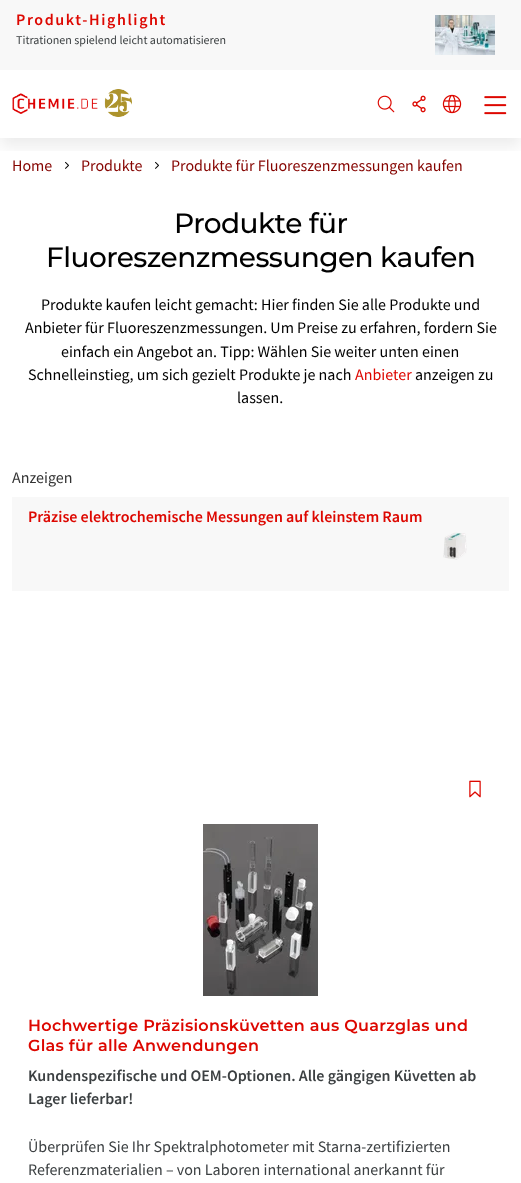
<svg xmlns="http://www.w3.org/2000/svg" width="521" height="1183">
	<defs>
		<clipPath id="clip1"><rect x="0" y="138" width="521" height="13" /></clipPath>
	</defs>
	<rect width="100%" height="100%" fill="#FFFFFF" />
	<image x="65" y="161" width="4" height="8" href="assets/img7.png" />
	<image x="155" y="161" width="4" height="8" href="assets/img7.png" />
	<g clip-path="url(#clip1)">
		<rect x="0" y="8" width="521" height="138" fill="#000000" fill-opacity="0.08" filter="blur(8px)" />
	</g>
	<rect x="0" y="0" width="521" height="70" fill="#F8F8F8" />
	<text x="16" y="25" font-family="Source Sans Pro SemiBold" font-size="16" font-weight="600" letter-spacing="1.6" fill="#DD0700">Produkt-Highlight</text>
	<text x="16" y="44" font-family="Source Sans Pro" font-size="12" fill="#3C4042">Titrationen spielend leicht automatisieren</text>
	<image x="435" y="15" width="60" height="40" href="assets/img1.png" />
	<image x="12" y="89" width="120" height="28" href="assets/img2.png" />
	<image x="377" y="95" width="18" height="18" href="assets/img3.png" />
	<image x="412" y="95" width="14" height="18" href="assets/img4.png" />
	<image x="442" y="94" width="20" height="20" href="assets/img5.png" />
	<image x="484" y="96" width="23" height="19" href="assets/img6.png" />
	<g font-family="Source Sans Pro" font-size="16" fill="#850400">
		<text x="12" y="171">Home</text>
		<text x="81" y="171">Produkte</text>
		<text x="171" y="171">Produkte für Fluoreszenzmessungen kaufen</text>
	</g>
	<g font-family="Montserrat" font-size="28" font-weight="100" letter-spacing="-0.55" fill="#000000">
		<text x="174" y="233">Produkte für</text>
		<text x="46" y="267">Fluoreszenzmessungen kaufen</text>
	</g>
	<g font-family="Source Sans Pro" font-size="16" fill="#000000">
		<text x="41" y="310">Produkte kaufen leicht gemacht: Hier finden Sie alle Produkte und</text>
		<text x="25" y="333">Anbieter für Fluoreszenzmessungen. Um Preise zu erfahren, fordern Sie</text>
		<text x="61" y="357">einfach ein Angebot an. Tipp: Wählen Sie weiter unten einen</text>
		<text x="28" y="380">Schnelleinstieg, um sich gezielt Produkte je nach</text>
	</g>
	<text x="355" y="380" font-family="Source Sans Pro" font-size="16" fill="#DD0700">Anbieter</text>
	<g font-family="Source Sans Pro" font-size="16" fill="#000000">
		<text x="415" y="380">anzeigen zu</text>
		<text x="237" y="403">lassen.</text>
	</g>
	<text x="12" y="483" font-family="Source Sans Pro" font-size="16" fill="#333333">Anzeigen</text>
	<rect x="12" y="497" width="497" height="94" fill="#F8F8F8" />
	<text x="28" y="522" font-family="Source Sans Pro SemiBold" font-size="16" font-weight="600" fill="#DD0700">Präzise elektrochemische Messungen auf kleinstem Raum</text>
	<image x="443" y="532" width="24" height="28" href="assets/img8.png" />
	<image x="469" y="780" width="12" height="18" href="assets/img9.png" />
	<image x="203" y="824" width="115" height="172" href="assets/img10.png" />
	<g font-family="'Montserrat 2'" font-size="16" font-weight="100" letter-spacing="0.3" fill="#DD0700">
		<text x="28" y="1031">Hochwertige Präzisionsküvetten aus Quarzglas und</text>
		<text x="28" y="1051">Glas für alle Anwendungen</text>
	</g>
	<g font-family="Source Sans Pro SemiBold" font-size="16" font-weight="600" fill="#3C4042">
		<text x="28" y="1081">Kundenspezifische und OEM-Optionen. Alle gängigen Küvetten ab</text>
		<text x="28" y="1104">Lager lieferbar!</text>
	</g>
	<g font-family="Source Sans Pro" font-size="16" fill="#3C4042">
		<text x="28" y="1152">Überprüfen Sie Ihr Spektralphotometer mit Starna-zertifizierten</text>
		<text x="28" y="1175">Referenzmaterialien – von Laboren international anerkannt für</text>
	</g>
</svg>
